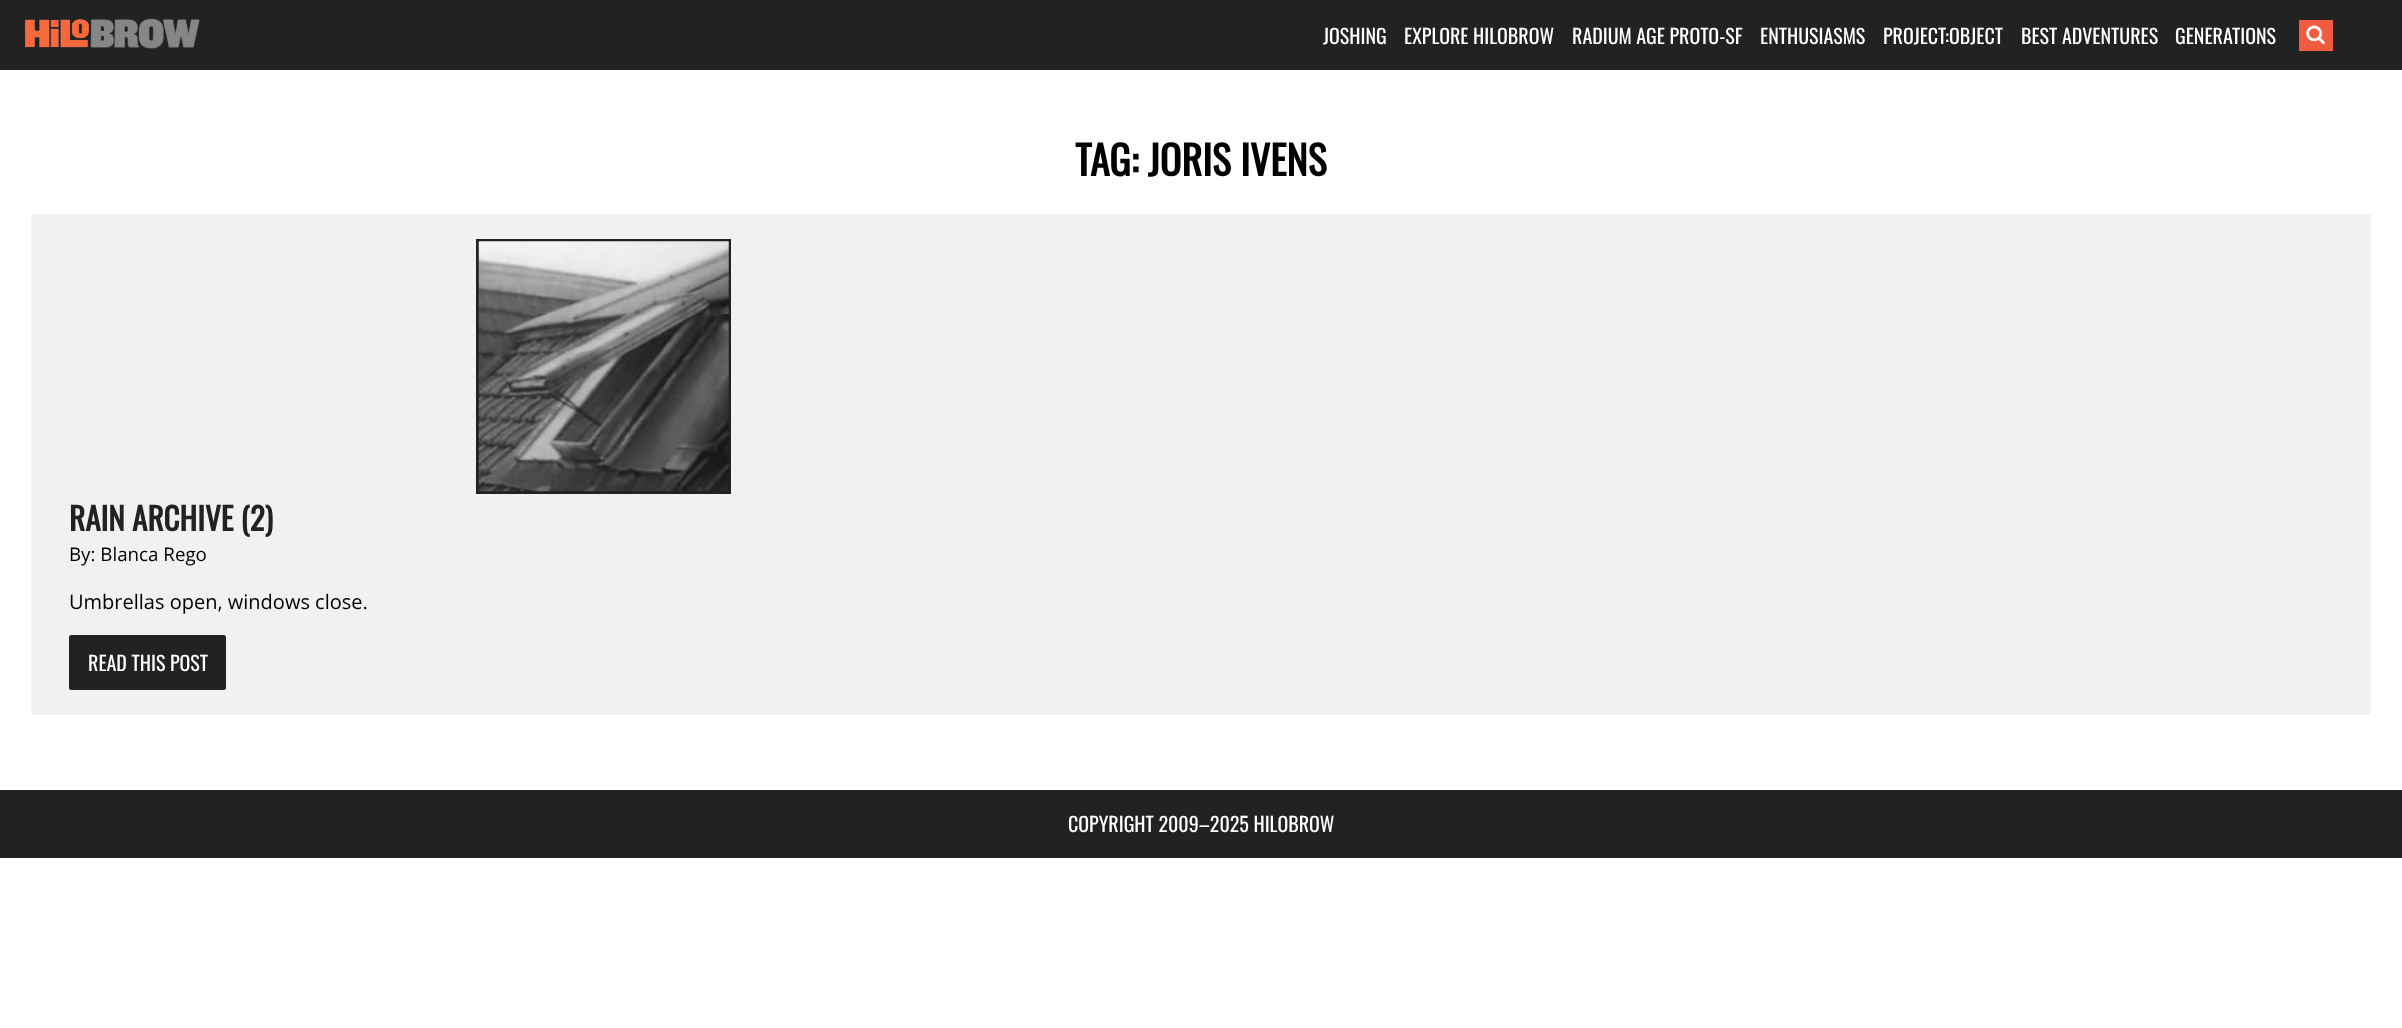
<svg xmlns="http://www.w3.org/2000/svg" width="2402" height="1028">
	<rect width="100%" height="100%" fill="#FFFFFF" />
	<rect x="0" y="0" width="2402" height="70" fill="#222222" />
	<image x="25" y="18" width="175" height="31" href="assets/img1.png" />
	<g font-family="Oswald" font-size="20" fill="#FFFFFF">
		<text x="1323" y="44">JOSHING</text>
		<text x="1404" y="44">EXPLORE HILOBROW</text>
		<text x="1572" y="44">RADIUM AGE PROTO-SF</text>
		<text x="1760" y="44">ENTHUSIASMS</text>
		<text x="1883" y="44">PROJECT:OBJECT</text>
		<text x="2021" y="44">BEST ADVENTURES</text>
		<text x="2175" y="44">GENERATIONS</text>
	</g>
	<rect x="2299" y="20" width="34" height="31" fill="#F15B40" />
	<image x="2306" y="25" width="19" height="20" href="assets/img2.png" />
	<text x="1075" y="176" font-family="Oswald" font-size="40" font-weight="700" fill="#000000">TAG: JORIS IVENS</text>
	<rect x="31" y="214" width="2340" height="501" rx="2.5" fill="#F1F1F1" />
	<rect x="477.5" y="240.5" width="252" height="252" fill="none" stroke="#222222" stroke-width="3" />
	<image x="478" y="241" width="251" height="251" href="assets/img3.png" />
	<text x="69" y="531" font-family="Oswald" font-size="31.25" font-weight="700" fill="#222222">RAIN ARCHIVE (2)</text>
	<text x="69" y="561" font-family="Open Sans" font-size="18.75" fill="#000000">By: Blanca Rego</text>
	<text x="69" y="609" font-family="Open Sans" font-size="20" fill="#000000">Umbrellas open, windows close.</text>
	<rect x="69" y="635" width="157" height="55" rx="2.5" fill="#222222" />
	<text x="88" y="671" font-family="Oswald" font-size="20" fill="#FFFFFF">READ THIS POST</text>
	<rect x="0" y="790" width="2402" height="68" fill="#222222" />
	<text x="1068" y="832" font-family="Oswald" font-size="20" fill="#FFFFFF">COPYRIGHT 2009–2025 HILOBROW</text>
</svg>
